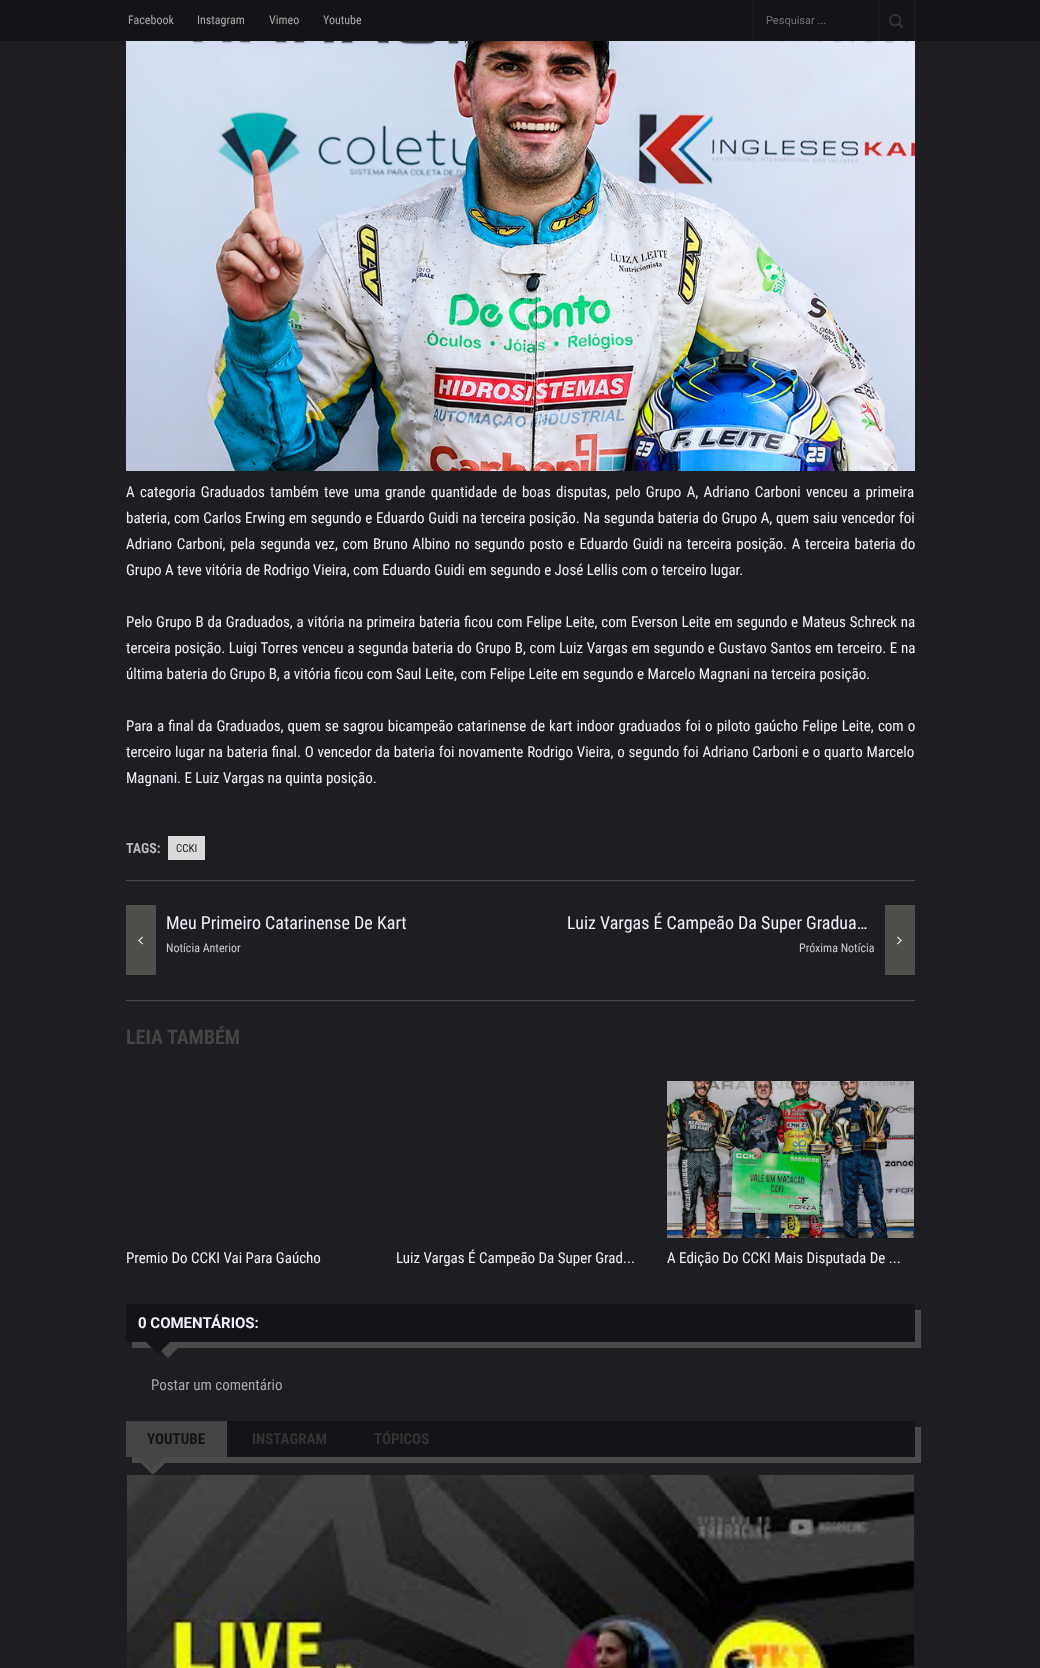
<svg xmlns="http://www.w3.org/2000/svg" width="1040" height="1668">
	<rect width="100%" height="100%" fill="#1E1E22" />
	<rect x="0" y="0" width="1040" height="41" fill="#141418" />
	<g font-family="Roboto Condensed" font-size="12" fill="#AAAAAA">
		<text x="128" y="24">Facebook</text>
		<text x="197" y="24">Instagram</text>
		<text x="269" y="24">Vimeo</text>
		<text x="323" y="24">Youtube</text>
	</g>
	<rect x="914" y="0" width="1" height="41" fill="#1E1E22" />
	<rect x="753" y="0" width="1" height="41" fill="#1E1E22" />
	<rect x="878" y="0" width="1" height="41" fill="#1E1E22" />
	<text x="766" y="24" font-family="Roboto" font-size="11" fill="#757575">Pesquisar ...</text>
	<image x="889" y="14" width="14" height="14" href="assets/img1.png" />
	<image x="126" y="41" width="789" height="430" href="assets/img2.png" />
	<g font-family="Roboto Condensed" font-size="15" fill="#F0F0FA">
		<text x="126" y="497" word-spacing="1.8">A categoria Graduados também teve uma grande quantidade de boas disputas, pelo Grupo A, Adriano Carboni venceu a primeira</text>
		<text x="126" y="523" word-spacing="0.25">bateria, com Carlos Erwing em segundo e Eduardo Guidi na terceira posição. Na segunda bateria do Grupo A, quem saiu vencedor foi</text>
		<text x="126" y="549" word-spacing="1.2">Adriano Carboni, pela segunda vez, com Bruno Albino no segundo posto e Eduardo Guidi na terceira posição. A terceira bateria do</text>
		<text x="126" y="575">Grupo A teve vitória de Rodrigo Vieira, com Eduardo Guidi em segundo e José Lellis com o terceiro lugar.</text>
		<text x="126" y="627" word-spacing="0.35">Pelo Grupo B da Graduados, a vitória na primeira bateria ficou com Felipe Leite, com Everson Leite em segundo e Mateus Schreck na</text>
		<text x="126" y="653" word-spacing="0.2">terceira posição. Luigi Torres venceu a segunda bateria do Grupo B, com Luiz Vargas em segundo e Gustavo Santos em terceiro. E na</text>
		<text x="126" y="679">última bateria do Grupo B, a vitória ficou com Saul Leite, com Felipe Leite em segundo e Marcelo Magnani na terceira posição.</text>
		<text x="126" y="731" word-spacing="0.7">Para a final da Graduados, quem se sagrou bicampeão catarinense de kart indoor graduados foi o piloto gaúcho Felipe Leite, com o</text>
		<text x="126" y="757" word-spacing="0.3">terceiro lugar na bateria final. O vencedor da bateria foi novamente Rodrigo Vieira, o segundo foi Adriano Carboni e o quarto Marcelo</text>
		<text x="126" y="783">Magnani. E Luiz Vargas na quinta posição.</text>
	</g>
	<rect x="126" y="880" width="789" height="1" fill="#494949" />
	<text x="126" y="853" font-family="Roboto Condensed" font-size="14" font-weight="700" fill="#B8B8B8">TAGS:</text>
	<rect x="168" y="836" width="37" height="24" fill="#DADADA" />
	<text x="176" y="852" font-family="Roboto Condensed" font-size="11" fill="#1E1E23">CCKI</text>
	<rect x="126" y="1000" width="789" height="1" fill="#494949" />
	<rect x="126" y="905" width="30" height="70" fill="#504F4C" />
	<image x="138" y="936" width="5" height="9" href="assets/img3.png" />
	<text x="166" y="929" font-family="Roboto Condensed" font-size="18" fill="#F0F0FA">Meu Primeiro Catarinense De Kart</text>
	<text x="166" y="952" font-family="Roboto Condensed" font-size="12" fill="#CECECE">Notícia Anterior</text>
	<text x="567" y="929" font-family="Roboto Condensed" font-size="18" fill="#F0F0FA">Luiz Vargas É Campeão Da Super Gradua…</text>
	<rect x="885" y="905" width="30" height="70" fill="#504F4C" />
	<image x="897" y="936" width="5" height="9" href="assets/img4.png" />
	<text x="799" y="952" font-family="Roboto Condensed" font-size="12" fill="#CECECE">Próxima Notícia</text>
	<text x="126" y="1044" font-family="Roboto Condensed" font-size="20" font-weight="700" fill="#444444">LEIA TAMBÉM</text>
	<g font-family="Roboto Condensed" font-size="15" fill="#F0F0FA">
		<text x="126" y="1263">Premio Do CCKI Vai Para Gaúcho</text>
		<text x="396" y="1263">Luiz Vargas É Campeão Da Super Grad...</text>
	</g>
	<image x="667" y="1081" width="247" height="157" href="assets/img5.png" />
	<text x="667" y="1263" font-family="Roboto Condensed" font-size="15" fill="#F0F0FA">A Edição Do CCKI Mais Disputada De ...</text>
	<path d="M132 1342V1348H921V1310H915V1342Z" fill="#4A4A4A" />
	<rect x="126" y="1304" width="789" height="38" fill="#141318" />
	<text x="138" y="1328" font-family="Roboto" font-size="15" font-weight="700" fill="#F0F0FA">0 COMENTÁRIOS:</text>
	<path d="M156 1346H180L168 1358Z" fill="#4A4A4A" />
	<path d="M146 1342H170L158 1354Z" fill="#141318" />
	<text x="151" y="1390" font-family="Roboto Condensed" font-size="15" fill="#AAAAAA">Postar um comentário</text>
	<path d="M132 1457V1463H921V1427H915V1457Z" fill="#4A4A4A" />
	<rect x="227" y="1421" width="688" height="36" fill="#141418" />
	<rect x="126" y="1421" width="101" height="36" fill="#444444" />
	<text x="147" y="1444" font-family="Roboto Condensed" font-size="15" font-weight="700" fill="#141318">YOUTUBE</text>
	<path d="M141 1463H165L153 1475Z" fill="#4A4A4A" />
	<path d="M140 1457H164L152 1469Z" fill="#444444" />
	<g font-family="Roboto Condensed" font-size="15" font-weight="700" fill="#333333">
		<text x="252" y="1444">INSTAGRAM</text>
		<text x="374" y="1444">TÓPICOS</text>
	</g>
	<rect x="152" y="1474" width="2" height="1" fill="#1E1E22" />
	<image x="127" y="1475" width="787" height="193" href="assets/img6.png" />
</svg>
